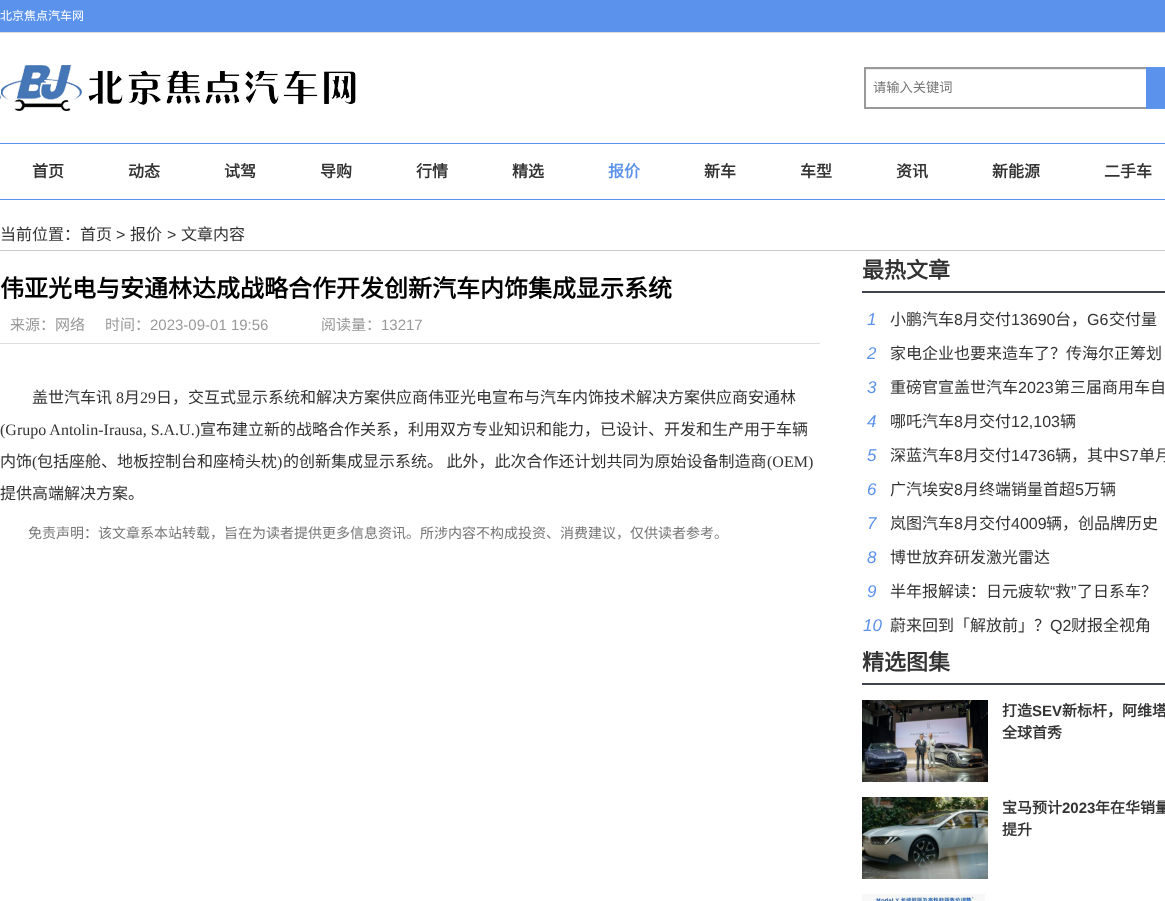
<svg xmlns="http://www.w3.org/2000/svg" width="1165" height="901">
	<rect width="100%" height="100%" fill="#FFFFFF" />
	<rect x="0" y="0" width="1165" height="32" fill="#5B92EC" />
	<rect x="0" y="32" width="1165" height="1" fill="#DCDCDC" />
	<text x="0" y="20" font-family="Noto Sans CJK SC" font-size="12" fill="#FFFFFF">北京焦点汽车网</text>
	<image x="0" y="65" width="356" height="46" href="assets/img1.png" />
	<rect x="866" y="69" width="280" height="1" fill="#ECECEC" />
	<rect x="865" y="68" width="282" height="40" fill="none" stroke="#999999" stroke-width="2" />
	<text x="873" y="92" font-family="Noto Sans CJK SC" font-size="13.25" fill="#757575">请输入关键词</text>
	<rect x="1146" y="67" width="19" height="42" fill="#5B92EC" />
	<rect x="0" y="143" width="1165" height="1" fill="#5B92EC" />
	<rect x="0" y="199" width="1165" height="1" fill="#5B92EC" />
	<g font-family="Noto Sans CJK SC" font-size="16" font-weight="700" fill="#333333">
		<text x="32" y="177">首页</text>
		<text x="128" y="177">动态</text>
		<text x="224" y="177">试驾</text>
		<text x="320" y="177">导购</text>
		<text x="416" y="177">行情</text>
		<text x="512" y="177">精选</text>
	</g>
	<text x="608" y="177" font-family="Noto Sans CJK SC" font-size="16" font-weight="700" fill="#5B92EC">报价</text>
	<g font-family="Noto Sans CJK SC" font-size="16" font-weight="700" fill="#333333">
		<text x="704" y="177">新车</text>
		<text x="800" y="177">车型</text>
		<text x="896" y="177">资讯</text>
		<text x="992" y="177">新能源</text>
		<text x="1104" y="177">二手车</text>
	</g>
	<rect x="0" y="250" width="1165" height="1" fill="#CCCCCC" />
	<text x="0" y="240" font-family="Noto Sans CJK SC" font-size="16" fill="#333333">当前位置：首页</text>
	<text x="116" y="240" font-family="Liberation Sans" font-size="16" fill="#333333">&gt;</text>
	<text x="130" y="240" font-family="Noto Sans CJK SC" font-size="16" fill="#333333">报价</text>
	<text x="167" y="240" font-family="Liberation Sans" font-size="16" fill="#333333">&gt;</text>
	<text x="181" y="240" font-family="Noto Sans CJK SC" font-size="16" fill="#333333">文章内容</text>
	<text x="0" y="297" font-family="Noto Sans CJK SC" font-size="24" font-weight="700" fill="#000000">伟亚光电与安通林达成战略合作开发创新汽车内饰集成显示系统</text>
	<rect x="0" y="343" width="820" height="1" fill="#DDDDDD" />
	<g font-family="Noto Sans CJK SC" font-size="15" fill="#999999">
		<text x="10" y="330">来源：网络</text>
		<text x="105" y="330">时间：</text>
	</g>
	<text x="150" y="330" font-family="Liberation Sans" font-size="15" fill="#999999">2023-09-01 19:56</text>
	<text x="321" y="330" font-family="Noto Sans CJK SC" font-size="15" fill="#999999">阅读量：</text>
	<text x="381" y="330" font-family="Liberation Sans" font-size="15" fill="#999999">13217</text>
	<text x="32" y="403" font-family="Noto Sans CJK SC" font-size="16" fill="#333333">盖世汽车讯</text>
	<text x="116" y="403" font-family="Liberation Serif" font-size="16" fill="#333333">8</text>
	<text x="124" y="403" font-family="Noto Sans CJK SC" font-size="16" fill="#333333">月</text>
	<text x="140" y="403" font-family="Liberation Serif" font-size="16" fill="#333333">29</text>
	<text x="156" y="403" font-family="Noto Sans CJK SC" font-size="16" fill="#333333">日，交互式显示系统和解决方案供应商伟亚光电宣布与汽车内饰技术解决方案供应商安通林</text>
	<text x="0" y="435" font-family="Liberation Serif" font-size="16" fill="#333333">(Grupo Antolin-Irausa, S.A.U.)</text>
	<g font-family="Noto Sans CJK SC" font-size="16" fill="#333333">
		<text x="200" y="435">宣布建立新的战略合作关系，利用双方专业知识和能力，已设计、开发和生产用于车辆</text>
		<text x="0" y="467">内饰</text>
	</g>
	<text x="32" y="467" font-family="Liberation Serif" font-size="16" fill="#333333">(</text>
	<text x="37" y="467" font-family="Noto Sans CJK SC" font-size="16" fill="#333333">包括座舱、地板控制台和座椅头枕</text>
	<text x="277" y="467" font-family="Liberation Serif" font-size="16" fill="#333333">)</text>
	<text x="283" y="467" font-family="Noto Sans CJK SC" font-size="16" fill="#333333">的创新集成显示系统。 此外，此次合作还计划共同为原始设备制造商</text>
	<text x="767" y="467" font-family="Liberation Serif" font-size="16" fill="#333333">(OEM)</text>
	<text x="0" y="499" font-family="Noto Sans CJK SC" font-size="16" fill="#333333">提供高端解决方案。</text>
	<text x="28" y="538" font-family="Noto Sans CJK SC" font-size="14" fill="#757575">免责声明：该文章系本站转载，旨在为读者提供更多信息资讯。所涉内容不构成投资、消费建议，仅供读者参考。</text>
	<rect x="862" y="291" width="303" height="2" fill="#414655" />
	<text x="862" y="278" font-family="Noto Sans CJK SC" font-size="22" font-weight="700" fill="#333333">最热文章</text>
	<text x="867" y="325" font-family="Liberation Sans" font-size="17" font-style="italic" fill="#5B92EC">1</text>
	<text x="890" y="325" font-family="Noto Sans CJK SC" font-size="16" fill="#333333">小鹏汽车</text>
	<text x="954" y="325" font-family="Liberation Sans" font-size="16" fill="#333333">8</text>
	<text x="963" y="325" font-family="Noto Sans CJK SC" font-size="16" fill="#333333">月交付</text>
	<text x="1011" y="325" font-family="Liberation Sans" font-size="16" fill="#333333">13690</text>
	<text x="1055" y="325" font-family="Noto Sans CJK SC" font-size="16" fill="#333333">台，</text>
	<text x="1087" y="325" font-family="Liberation Sans" font-size="16" fill="#333333">G6</text>
	<text x="1109" y="325" font-family="Noto Sans CJK SC" font-size="16" fill="#333333">交付量</text>
	<text x="867" y="359" font-family="Liberation Sans" font-size="17" font-style="italic" fill="#5B92EC">2</text>
	<text x="890" y="359" font-family="Noto Sans CJK SC" font-size="16" fill="#333333">家电企业也要来造车了？传海尔正筹划</text>
	<text x="867" y="393" font-family="Liberation Sans" font-size="17" font-style="italic" fill="#5B92EC">3</text>
	<text x="890" y="393" font-family="Noto Sans CJK SC" font-size="16" fill="#333333">重磅官宣盖世汽车</text>
	<text x="1018" y="393" font-family="Liberation Sans" font-size="16" fill="#333333">2023</text>
	<text x="1054" y="393" font-family="Noto Sans CJK SC" font-size="16" fill="#333333">第三届商用车自</text>
	<text x="867" y="427" font-family="Liberation Sans" font-size="17" font-style="italic" fill="#5B92EC">4</text>
	<text x="890" y="427" font-family="Noto Sans CJK SC" font-size="16" fill="#333333">哪吒汽车</text>
	<text x="954" y="427" font-family="Liberation Sans" font-size="16" fill="#333333">8</text>
	<text x="963" y="427" font-family="Noto Sans CJK SC" font-size="16" fill="#333333">月交付</text>
	<text x="1011" y="427" font-family="Liberation Sans" font-size="16" fill="#333333">12,103</text>
	<text x="1060" y="427" font-family="Noto Sans CJK SC" font-size="16" fill="#333333">辆</text>
	<text x="867" y="461" font-family="Liberation Sans" font-size="17" font-style="italic" fill="#5B92EC">5</text>
	<text x="890" y="461" font-family="Noto Sans CJK SC" font-size="16" fill="#333333">深蓝汽车</text>
	<text x="954" y="461" font-family="Liberation Sans" font-size="16" fill="#333333">8</text>
	<text x="963" y="461" font-family="Noto Sans CJK SC" font-size="16" fill="#333333">月交付</text>
	<text x="1011" y="461" font-family="Liberation Sans" font-size="16" fill="#333333">14736</text>
	<text x="1055" y="461" font-family="Noto Sans CJK SC" font-size="16" fill="#333333">辆，其中</text>
	<text x="1119" y="461" font-family="Liberation Sans" font-size="16" fill="#333333">S7</text>
	<text x="1139" y="461" font-family="Noto Sans CJK SC" font-size="16" fill="#333333">单月</text>
	<text x="867" y="495" font-family="Liberation Sans" font-size="17" font-style="italic" fill="#5B92EC">6</text>
	<text x="890" y="495" font-family="Noto Sans CJK SC" font-size="16" fill="#333333">广汽埃安</text>
	<text x="954" y="495" font-family="Liberation Sans" font-size="16" fill="#333333">8</text>
	<text x="963" y="495" font-family="Noto Sans CJK SC" font-size="16" fill="#333333">月终端销量首超</text>
	<text x="1075" y="495" font-family="Liberation Sans" font-size="16" fill="#333333">5</text>
	<text x="1084" y="495" font-family="Noto Sans CJK SC" font-size="16" fill="#333333">万辆</text>
	<text x="867" y="529" font-family="Liberation Sans" font-size="17" font-style="italic" fill="#5B92EC">7</text>
	<text x="890" y="529" font-family="Noto Sans CJK SC" font-size="16" fill="#333333">岚图汽车</text>
	<text x="954" y="529" font-family="Liberation Sans" font-size="16" fill="#333333">8</text>
	<text x="963" y="529" font-family="Noto Sans CJK SC" font-size="16" fill="#333333">月交付</text>
	<text x="1011" y="529" font-family="Liberation Sans" font-size="16" fill="#333333">4009</text>
	<text x="1046" y="529" font-family="Noto Sans CJK SC" font-size="16" fill="#333333">辆，创品牌历史</text>
	<text x="867" y="563" font-family="Liberation Sans" font-size="17" font-style="italic" fill="#5B92EC">8</text>
	<text x="890" y="563" font-family="Noto Sans CJK SC" font-size="16" fill="#333333">博世放弃研发激光雷达</text>
	<text x="867" y="597" font-family="Liberation Sans" font-size="17" font-style="italic" fill="#5B92EC">9</text>
	<text x="890" y="597" font-family="Noto Sans CJK SC" font-size="16" fill="#333333">半年报解读：日元疲软</text>
	<text x="1050" y="597" font-family="Liberation Sans" font-size="16" fill="#333333">“</text>
	<text x="1055" y="597" font-family="Noto Sans CJK SC" font-size="16" fill="#333333">救</text>
	<text x="1071" y="597" font-family="Liberation Sans" font-size="16" fill="#333333">”</text>
	<text x="1077" y="597" font-family="Noto Sans CJK SC" font-size="16" fill="#333333">了日系车？</text>
	<text x="863" y="631" font-family="Liberation Sans" font-size="17" font-style="italic" fill="#5B92EC">10</text>
	<text x="890" y="631" font-family="Noto Sans CJK SC" font-size="16" fill="#333333">蔚来回到「解放前」？</text>
	<text x="1050" y="631" font-family="Liberation Sans" font-size="16" fill="#333333">Q2</text>
	<text x="1071" y="631" font-family="Noto Sans CJK SC" font-size="16" fill="#333333">财报全视角</text>
	<rect x="862" y="683" width="303" height="2" fill="#414655" />
	<text x="862" y="670" font-family="Noto Sans CJK SC" font-size="22" font-weight="700" fill="#333333">精选图集</text>
	<image x="862" y="700" width="126" height="82" href="assets/img2.png" />
	<text x="1002" y="716" font-family="Noto Sans CJK SC" font-size="15" font-weight="700" fill="#333333">打造</text>
	<text x="1032" y="716" font-family="Liberation Sans" font-size="15" font-weight="700" fill="#333333">SEV</text>
	<g font-family="Noto Sans CJK SC" font-size="15" font-weight="700" fill="#333333">
		<text x="1062" y="716">新标杆，阿维塔</text>
		<text x="1002" y="738">全球首秀</text>
	</g>
	<image x="862" y="797" width="126" height="82" href="assets/img3.png" />
	<text x="1002" y="813" font-family="Noto Sans CJK SC" font-size="15" font-weight="700" fill="#333333">宝马预计</text>
	<text x="1062" y="813" font-family="Liberation Sans" font-size="15" font-weight="700" fill="#333333">2023</text>
	<g font-family="Noto Sans CJK SC" font-size="15" font-weight="700" fill="#333333">
		<text x="1095" y="813">年在华销量</text>
		<text x="1002" y="835">提升</text>
	</g>
	<image x="862" y="894" width="123" height="7" href="assets/img4.png" />
</svg>
